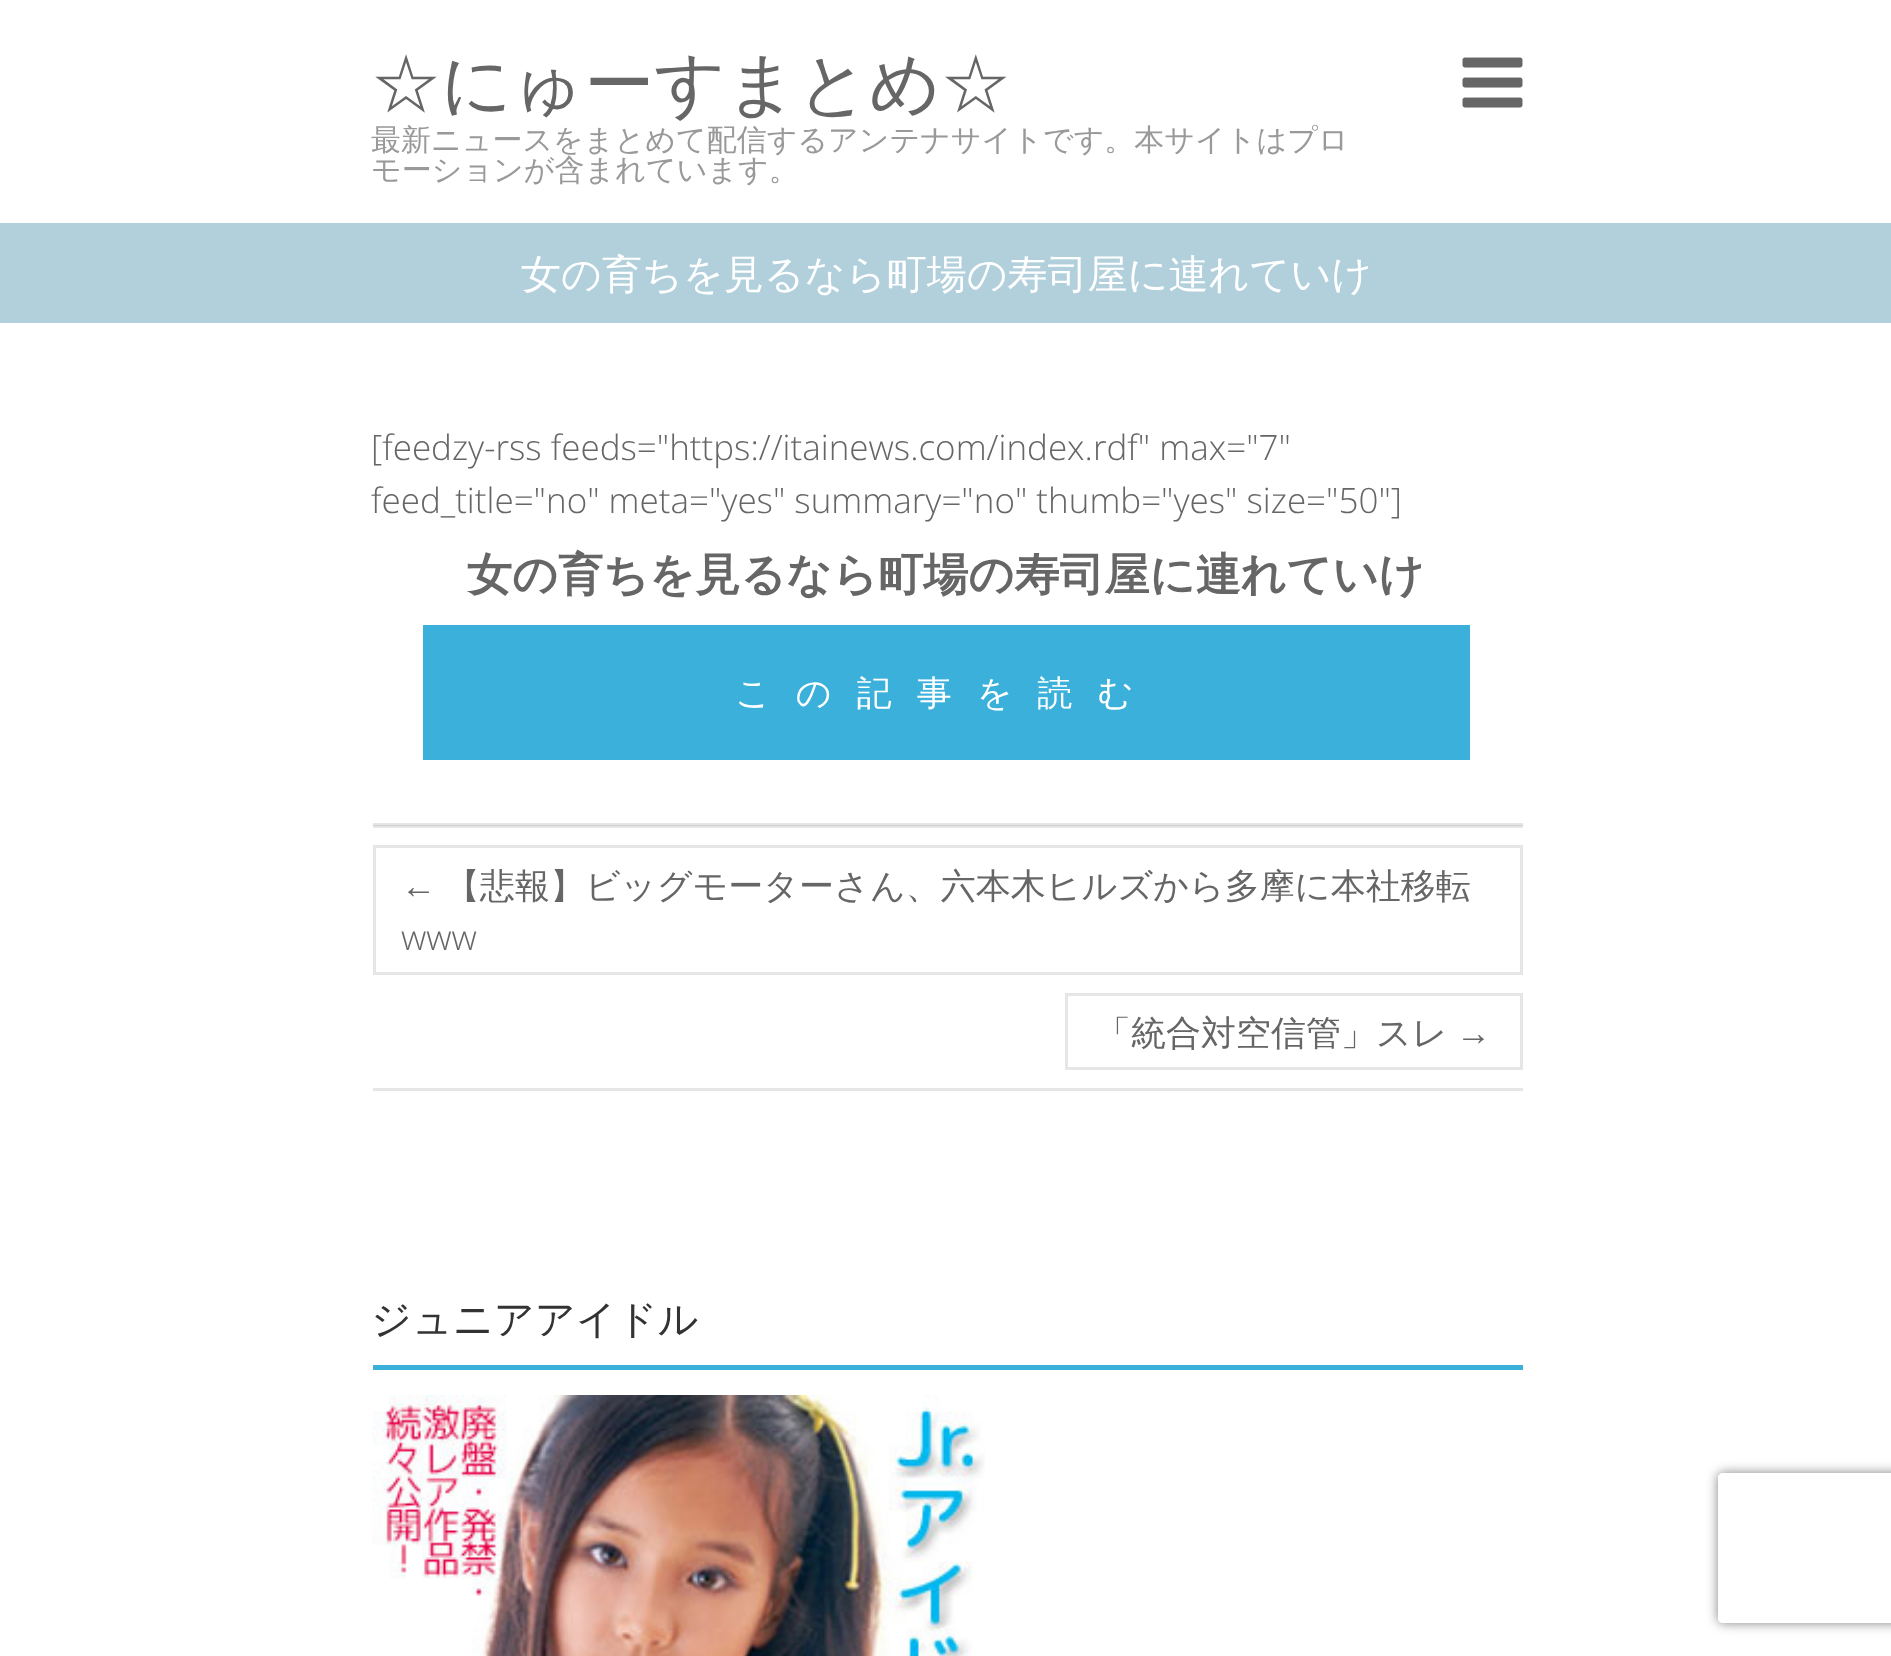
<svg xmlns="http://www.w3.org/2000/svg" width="1891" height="1656">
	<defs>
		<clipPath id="clip1"><path d="M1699 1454H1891V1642H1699ZM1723 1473H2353C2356 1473 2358 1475 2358 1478V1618C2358 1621 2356 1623 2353 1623H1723C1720 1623 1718 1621 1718 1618V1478C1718 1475 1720 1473 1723 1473Z" clip-rule="evenodd" /></clipPath>
	</defs>
	<rect width="100%" height="100%" fill="#FFFFFF" />
	<rect x="373" y="826" width="1150" height="2" fill="#E6E6E6" />
	<text x="371" y="108" font-family="WenQuanYi Zen Hei" font-size="70" font-weight="500" fill="#666666">☆にゅーすまとめ☆</text>
	<g font-family="WenQuanYi Zen Hei" font-size="30" font-weight="500" fill="#999999">
		<text x="371" y="150">最新ニュースをまとめて配信するアンテナサイトです。本サイトはプロ</text>
		<text x="371" y="180">モーションが含まれています。</text>
	</g>
	<image x="1462" y="57" width="61" height="51" href="assets/img1.png" />
	<rect x="0" y="223" width="1891" height="100" fill="#B1D0DC" />
	<text x="521" y="288" font-family="WenQuanYi Zen Hei" font-size="40" font-weight="500" fill="#FFFFFF">女の育ちを見るなら町場の寿司屋に連れていけ</text>
	<g font-family="Open Sans" font-size="35" font-weight="300" fill="#666666">
		<text x="371" y="460">[feedzy-rss feeds="https://itainews.com/index.rdf" max="7"</text>
		<text x="371" y="513">feed_title="no" meta="yes" summary="no" thumb="yes" size="50"]</text>
	</g>
	<text x="467" y="590" font-family="WenQuanYi Zen Hei" font-size="45" font-weight="700" fill="#666666">女の育ちを見るなら町場の寿司屋に連れていけ</text>
	<rect x="423" y="625" width="1047" height="135" fill="#3AB0DB" />
	<text x="735" y="705" font-family="WenQuanYi Zen Hei" font-size="35" font-weight="500" letter-spacing="25" fill="#FFFFFF">この記事を読む</text>
	<rect x="373" y="823" width="1150" height="2" fill="#E6E6E6" />
	<rect x="373" y="825" width="1150" height="1" fill="#CFCFCF" />
	<rect x="373" y="1088" width="1150" height="3" fill="#E6E6E6" />
	<rect x="374.5" y="846.5" width="1147" height="127" fill="none" stroke="#E6E6E6" stroke-width="3" />
	<text x="401" y="898" font-family="Liberation Sans" font-size="35" fill="#666666">←</text>
	<text x="445" y="898" font-family="WenQuanYi Zen Hei" font-size="35" font-weight="500" fill="#666666">【悲報】ビッグモーターさん、六本木ヒルズから多摩に本社移転</text>
	<text x="401" y="950" font-family="Open Sans" font-size="35" font-weight="300" fill="#666666">www</text>
	<rect x="1066.5" y="994.5" width="455" height="74" fill="none" stroke="#E6E6E6" stroke-width="3" />
	<text x="1096" y="1045" font-family="WenQuanYi Zen Hei" font-size="35" font-weight="500" fill="#666666">「統合対空信管」スレ</text>
	<text x="1456" y="1045" font-family="Liberation Sans" font-size="35" fill="#666666">→</text>
	<rect x="373" y="1365" width="1150" height="5" fill="#3AB0DB" />
	<text x="371" y="1333" font-family="WenQuanYi Zen Hei" font-size="40" font-weight="500" fill="#333333">ジュニアアイドル</text>
	<image x="372" y="1395" width="613" height="261" href="assets/img2.png" />
	<g clip-path="url(#clip1)">
		<rect x="1718" y="1473" width="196" height="150" rx="5" fill="#808080" filter="blur(6px)" />
	</g>
</svg>
